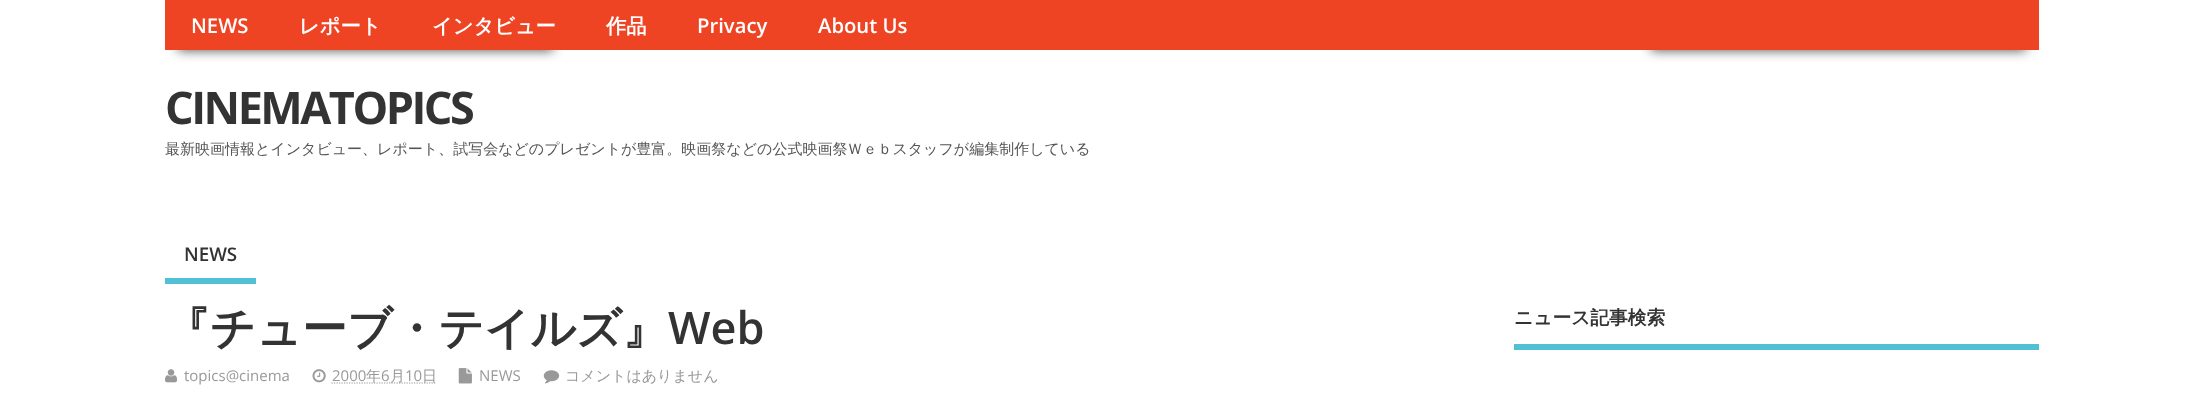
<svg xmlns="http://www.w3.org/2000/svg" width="2203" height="405">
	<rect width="100%" height="100%" fill="#FFFFFF" />
	<rect x="178" y="40" width="375" height="10" fill="#000000" fill-opacity="0.75" filter="blur(6px)" />
	<rect x="1651" y="40" width="375" height="10" fill="#000000" fill-opacity="0.75" filter="blur(6px)" />
	<rect x="165" y="0" width="1874" height="50" fill="#EF4423" />
	<text x="191" y="33" font-family="Open Sans" font-size="20.25" font-weight="600" fill="#FFFFFF">NEWS</text>
	<g font-family="WenQuanYi Zen Hei" font-size="20.25" font-weight="700" fill="#FFFFFF">
		<text x="299" y="33">レポート</text>
		<text x="432" y="33">インタビュー</text>
		<text x="606" y="33">作品</text>
	</g>
	<g font-family="Open Sans" font-size="20.25" font-weight="600" fill="#FFFFFF">
		<text x="697" y="33">Privacy</text>
		<text x="818" y="33">About Us</text>
	</g>
	<text x="165" y="124" font-family="Open Sans" font-size="45" font-weight="700" letter-spacing="-2.5" fill="#333333">CINEMATOPICS</text>
	<text x="165" y="154" font-family="WenQuanYi Zen Hei" font-size="15" font-weight="500" fill="#555555">最新映画情報とインタビュー、レポート、試写会などのプレゼントが豊富。映画祭などの公式映画祭Ｗｅｂスタッフが編集制作している</text>
	<rect x="165" y="278" width="91" height="6" fill="#52C0D4" />
	<text x="184" y="261" font-family="Open Sans" font-size="18.75" font-weight="600" fill="#333333">NEWS</text>
	<text x="165" y="344" font-family="WenQuanYi Zen Hei" font-size="45" font-weight="700" fill="#333333">『チューブ・テイルズ』</text>
	<text x="668" y="344" font-family="Open Sans" font-size="45" font-weight="600" fill="#333333">Web</text>
	<image x="165" y="369" width="13" height="14" href="assets/img1.png" />
	<text x="184" y="381" font-family="Open Sans" font-size="15" fill="#999999">topics@cinema</text>
	<image x="312" y="369" width="14" height="14" href="assets/img2.png" />
	<text x="332" y="381" font-family="Open Sans" font-size="15" fill="#999999">2000</text>
	<path d="M331.5 383H436.5" fill="none" stroke="#999999" stroke-width="1.2" stroke-dasharray="1.25 1.25" />
	<text x="366" y="381" font-family="WenQuanYi Zen Hei" font-size="15" font-weight="500" fill="#999999">年</text>
	<text x="381" y="381" font-family="Open Sans" font-size="15" fill="#999999">6</text>
	<text x="390" y="381" font-family="WenQuanYi Zen Hei" font-size="15" font-weight="500" fill="#999999">月</text>
	<text x="405" y="381" font-family="Open Sans" font-size="15" fill="#999999">10</text>
	<text x="422" y="381" font-family="WenQuanYi Zen Hei" font-size="15" font-weight="500" fill="#999999">日</text>
	<image x="458" y="368" width="14" height="16" href="assets/img3.png" />
	<text x="479" y="381" font-family="Open Sans" font-size="15" fill="#999999">NEWS</text>
	<image x="543" y="370" width="17" height="14" href="assets/img4.png" />
	<text x="565" y="381" font-family="WenQuanYi Zen Hei" font-size="15" font-weight="500" fill="#999999">コメントはありません</text>
	<rect x="1514" y="344" width="525" height="6" fill="#52C0D4" />
	<text x="1514" y="324" font-family="WenQuanYi Zen Hei" font-size="18.75" font-weight="700" fill="#333333">ニュース記事検索</text>
</svg>
